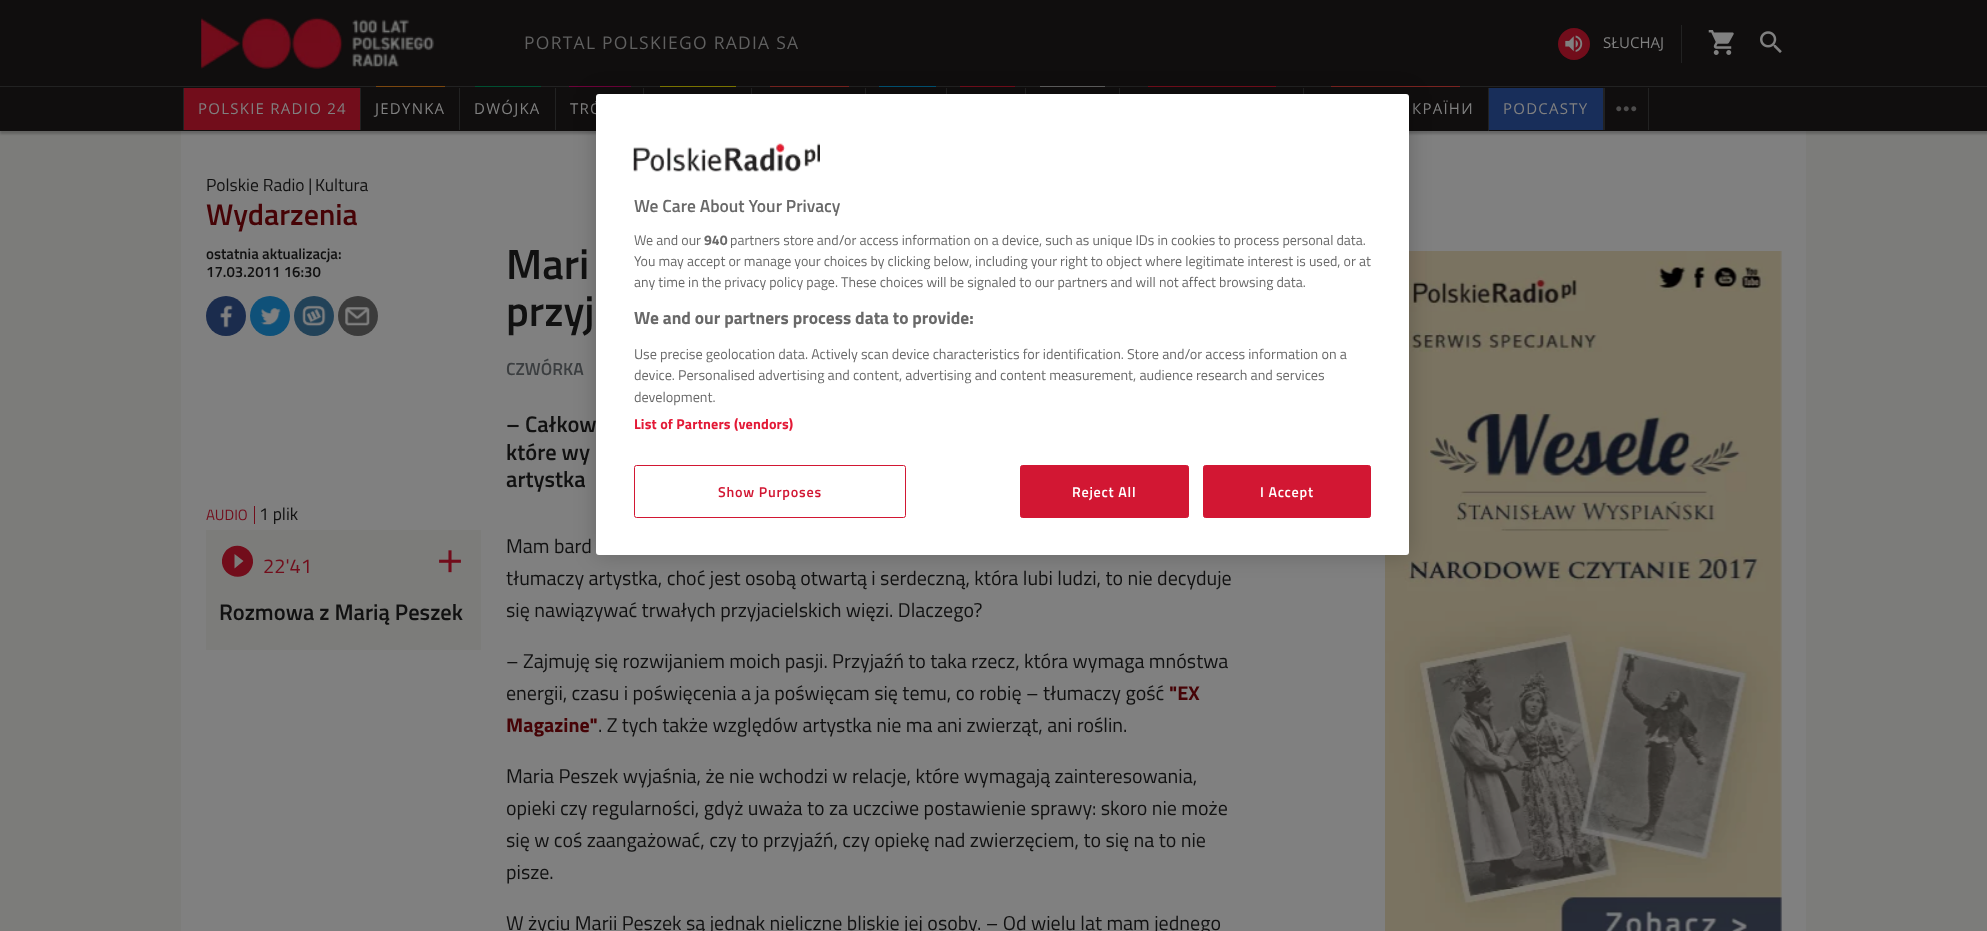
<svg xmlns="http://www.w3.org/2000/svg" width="1987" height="931">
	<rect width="100%" height="100%" fill="#7C7C7A" />
	<rect x="181" y="131" width="1625" height="800" fill="#808080" />
	<rect x="0" y="3" width="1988" height="131" fill="#000000" fill-opacity="0.2" filter="blur(1px)" />
	<rect x="0" y="0" width="1987" height="131" fill="#100E0E" />
	<rect x="0" y="86" width="1987" height="1" fill="#222222" />
	<image x="201" y="17" width="234" height="52" href="assets/img1.png" />
	<text x="524" y="49" font-family="Open Sans" font-size="17.5" letter-spacing="1.25" fill="#606060">PORTAL POLSKIEGO RADIA SA</text>
	<circle cx="1574" cy="44" r="16" fill="#720D1B" />
	<image x="1565" y="35" width="18" height="17" href="assets/img2.png" />
	<text x="1603" y="48" font-family="Open Sans" font-size="15" fill="#808080">SŁUCHAJ</text>
	<rect x="1681" y="25" width="1" height="38" fill="#222222" />
	<image x="1708" y="30" width="26" height="25" href="assets/img3.png" />
	<image x="1760" y="31" width="22" height="22" href="assets/img4.png" />
	<rect x="183" y="88" width="1" height="42" fill="#222222" />
	<rect x="184" y="88" width="176" height="42" fill="#720D1B" />
	<rect x="360" y="88" width="1" height="42" fill="#222222" />
	<text x="198" y="114" font-family="Open Sans" font-size="15" letter-spacing="1.25" fill="#808080">POLSKIE RADIO 24</text>
	<rect x="459" y="88" width="1" height="42" fill="#222222" />
	<rect x="376" y="86" width="69" height="1" fill="#7B470F" />
	<text x="375" y="114" font-family="Open Sans" font-size="15" letter-spacing="1.25" fill="#808080">JEDYNKA</text>
	<rect x="555" y="88" width="1" height="42" fill="#222222" />
	<rect x="475" y="86" width="66" height="1" fill="#004F31" />
	<text x="474" y="114" font-family="Open Sans" font-size="15" letter-spacing="1.25" fill="#808080">DWÓJKA</text>
	<rect x="643" y="88" width="1" height="6" fill="#222222" />
	<rect x="569" y="86" width="62" height="1" fill="#6C0239" />
	<text x="570" y="114" font-family="Open Sans" font-size="15" letter-spacing="1.25" fill="#808080">TRÓ</text>
	<rect x="751" y="88" width="1" height="6" fill="#222222" />
	<rect x="660" y="86" width="76" height="1" fill="#807A01" />
	<rect x="865" y="88" width="1" height="6" fill="#222222" />
	<rect x="770" y="86" width="79" height="1" fill="#7A2320" />
	<rect x="946" y="88" width="1" height="6" fill="#222222" />
	<rect x="879" y="86" width="57" height="1" fill="#005374" />
	<rect x="1025" y="88" width="1" height="6" fill="#222222" />
	<rect x="960" y="86" width="55" height="1" fill="#720D1B" />
	<rect x="1119" y="88" width="1" height="6" fill="#222222" />
	<rect x="1040" y="86" width="65" height="1" fill="#5E5E5E" />
	<rect x="1303" y="88" width="1" height="6" fill="#222222" />
	<rect x="1148" y="86" width="128" height="1" fill="#720D1B" />
	<rect x="1488" y="88" width="1" height="43" fill="#222222" />
	<rect x="1331" y="86" width="129" height="1" fill="#7A2320" />
	<text x="1412" y="114" font-family="Open Sans" font-size="15" letter-spacing="1.25" fill="#808080">КРАЇНИ</text>
	<rect x="1489" y="88" width="114" height="42" fill="#182E5A" />
	<rect x="1603" y="88" width="2" height="42" fill="#222222" />
	<text x="1503" y="114" font-family="Open Sans" font-size="15" letter-spacing="1.25" fill="#808080">PODCASTY</text>
	<rect x="1648" y="88" width="1" height="42" fill="#222222" />
	<image x="1616" y="106" width="21" height="6" href="assets/img5.png" />
	<g font-family="Titillium Web" font-size="17.5" fill="#111111">
		<text x="206" y="191">Polskie Radio |</text>
		<text x="315" y="191">Kultura</text>
	</g>
	<text x="206" y="225" font-family="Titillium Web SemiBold" font-size="30" font-weight="600" fill="#460306">Wydarzenia</text>
	<g font-family="Titillium Web SemiBold" font-size="15" font-weight="600" fill="#111111">
		<text x="206" y="259">ostatnia aktualizacja:</text>
		<text x="206" y="277">17.03.2011 16:30</text>
	</g>
	<g font-family="Titillium Web SemiBold" font-size="42.5" font-weight="600" fill="#111111">
		<text x="506" y="279">Mari</text>
		<text x="506" y="326">przyj</text>
	</g>
	<circle cx="226" cy="316" r="20" fill="#1B2C4D" />
	<image x="220" y="305" width="13" height="23" href="assets/img6.png" />
	<circle cx="270" cy="316" r="20" fill="#0F5179" />
	<image x="260" y="308" width="21" height="18" href="assets/img7.png" />
	<circle cx="314" cy="316" r="20" fill="#224258" />
	<image x="302" y="305" width="24" height="22" href="assets/img8.png" />
	<circle cx="358" cy="316" r="20" fill="#3B3B3B" />
	<image x="345" y="307" width="25" height="19" href="assets/img9.png" />
	<text x="506" y="375" font-family="Titillium Web SemiBold" font-size="17.5" font-weight="600" fill="#3B3E40">CZWÓRKA</text>
	<g font-family="Titillium Web SemiBold" font-size="22.5" font-weight="600" fill="#111111">
		<text x="506" y="432">– Całkow</text>
		<text x="506" y="460">które wy</text>
		<text x="506" y="487">artystka</text>
	</g>
	<rect x="254" y="506" width="1" height="18" fill="#720D1B" />
	<text x="206" y="520" font-family="Titillium Web" font-size="15" fill="#720D1B">AUDIO</text>
	<text x="259" y="520" font-family="Titillium Web" font-size="17.5" fill="#111111">1 plik</text>
	<rect x="206" y="530" width="275" height="120" fill="#7C7C7A" />
	<path d="M234.5 568.5L243.5 561L234.5 554ZM226.5 550C237 540 254.5 548.5 253 563C252.5 566.5 251 569.5 248.5 572.5C238 582.5 220.5 574 222 559.5C222.5 556 224 553 226.5 550Z" fill="#720D1B" />
	<text x="263" y="573" font-family="Titillium Web" font-size="20" fill="#720D1B">22'41</text>
	<image x="439" y="550" width="22" height="23" href="assets/img10.png" />
	<text x="219" y="620" font-family="Titillium Web SemiBold" font-size="22.5" font-weight="600" fill="#111111">Rozmowa z Marią Peszek</text>
	<g font-family="Titillium Web" font-size="20" fill="#111111">
		<text x="506" y="553">Mam bard</text>
		<text x="506" y="585">tłumaczy artystka, choć jest osobą otwartą i serdeczną, która lubi ludzi, to nie decyduje</text>
		<text x="506" y="617">się nawiązywać trwałych przyjacielskich więzi. Dlaczego?</text>
		<text x="506" y="668">– Zajmuję się rozwijaniem moich pasji. Przyjaźń to taka rzecz, która wymaga mnóstwa</text>
		<text x="506" y="700">energii, czasu i poświęcenia a ja poświęcam się temu, co robię – tłumaczy gość</text>
	</g>
	<g font-family="Titillium Web" font-size="20" font-weight="700" fill="#460306">
		<text x="1169" y="700">"EX</text>
		<text x="506" y="732">Magazine"</text>
	</g>
	<g font-family="Titillium Web" font-size="20" fill="#111111">
		<text x="598" y="732">. Z tych także względów artystka nie ma ani zwierząt, ani roślin.</text>
		<text x="506" y="783">Maria Peszek wyjaśnia, że nie wchodzi w relacje, które wymagają zainteresowania,</text>
		<text x="506" y="815">opieki czy regularności, gdyż uważa to za uczciwe postawienie sprawy: skoro nie może</text>
		<text x="506" y="847">się w coś zaangażować, czy to przyjaźń, czy opiekę nad zwierzęciem, to się na to nie</text>
		<text x="506" y="879">pisze.</text>
		<text x="506" y="930">W życiu Marii Peszek są jednak nieliczne bliskie jej osoby. – Od wielu lat mam jednego</text>
	</g>
	<image x="1385" y="251" width="397" height="680" href="assets/img11.png" />
	<rect x="596" y="94" width="813" height="461" rx="3" fill="#000000" fill-opacity="0.2" filter="blur(11px)" />
	<rect x="596" y="94" width="813" height="461" rx="3" fill="#FFFFFF" />
	<image x="633" y="143" width="187" height="29" href="assets/img12.png" />
	<text x="634" y="212" font-family="Titillium Web SemiBold" font-size="17.5" font-weight="600" fill="#696969">We Care About Your Privacy</text>
	<text x="634" y="245" font-family="Titillium Web" font-size="14" fill="#696969">We and our</text>
	<text x="704" y="245" font-family="Titillium Web" font-size="14" font-weight="700" fill="#696969">940</text>
	<g font-family="Titillium Web" font-size="14" fill="#696969">
		<text x="730" y="245">partners store and/or access information on a device, such as unique IDs in cookies to process personal data.</text>
		<text x="634" y="266">You may accept or manage your choices by clicking below, including your right to object where legitimate interest is used, or at</text>
		<text x="634" y="287">any time in the privacy policy page. These choices will be signaled to our partners and will not affect browsing data.</text>
	</g>
	<text x="634" y="324" font-family="Titillium Web" font-size="17.5" font-weight="700" fill="#696969">We and our partners process data to provide:</text>
	<g font-family="Titillium Web" font-size="14.23" fill="#696969">
		<text x="634" y="359">Use precise geolocation data. Actively scan device characteristics for identification. Store and/or access information on a</text>
		<text x="634" y="380">device. Personalised advertising and content, advertising and content measurement, audience research and services</text>
		<text x="634" y="402">development.</text>
	</g>
	<text x="634" y="429" font-family="Titillium Web" font-size="14.23" font-weight="700" letter-spacing="0.15" fill="#E31936">List of Partners (vendors)</text>
	<rect x="634.5" y="465.5" width="271" height="52" rx="2" fill="none" stroke="#D21733" />
	<text x="718" y="497" font-family="Titillium Web SemiBold" font-size="14.23" font-weight="600" letter-spacing="0.75" fill="#D21733">Show Purposes</text>
	<rect x="1020.5" y="465.5" width="168" height="52" rx="2" fill="#D21733" stroke="#D21733" />
	<text x="1072" y="497" font-family="Titillium Web SemiBold" font-size="14.23" font-weight="600" letter-spacing="0.75" fill="#FFFFFF">Reject All</text>
	<rect x="1203.5" y="465.5" width="167" height="52" rx="2" fill="#D21733" stroke="#D21733" />
	<text x="1260" y="497" font-family="Titillium Web SemiBold" font-size="14.23" font-weight="600" letter-spacing="0.75" fill="#FFFFFF">I Accept</text>
</svg>
